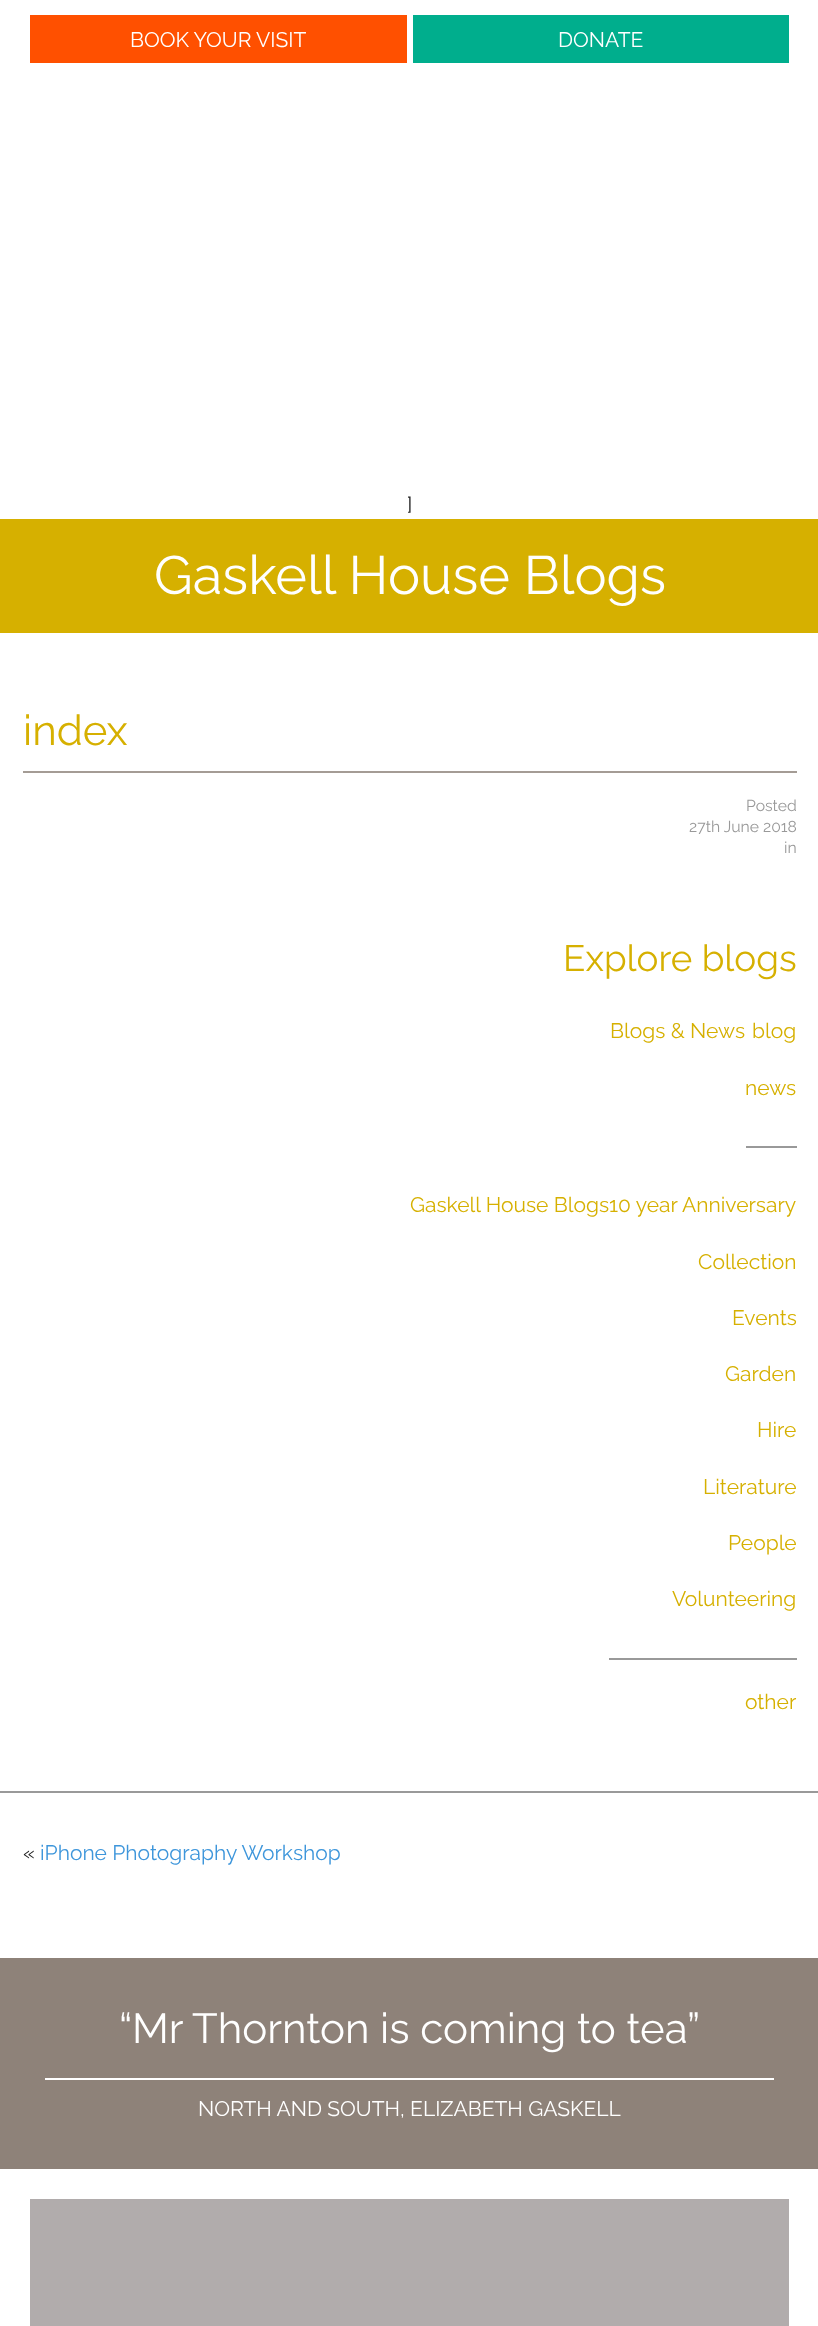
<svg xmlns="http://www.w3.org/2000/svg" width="818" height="2326">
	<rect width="100%" height="100%" fill="#FFFFFF" />
	<rect x="30" y="15" width="377" height="48" fill="#FF5000" />
	<text x="130" y="47" font-family="Raleway" font-size="21" fill="#FFFFFF">BOOK YOUR VISIT</text>
	<rect x="413" y="15" width="376" height="48" fill="#00AE8D" />
	<text x="558" y="47" font-family="Raleway" font-size="21" fill="#FFFFFF">DONATE</text>
	<text x="407" y="512" font-family="Raleway" font-size="21" fill="#222222">]</text>
	<rect x="0" y="519" width="818" height="114" fill="#D6B000" />
	<text x="154" y="594" font-family="Raleway" font-size="54" fill="#FFFFFF">Gaskell House Blogs</text>
	<rect x="0" y="1791" width="818" height="2" fill="#999999" />
	<rect x="23" y="771" width="774" height="2" fill="#A49C95" />
	<text x="23" y="745" font-family="Raleway" font-size="42" fill="#D6B000">index</text>
	<g font-family="Raleway" font-size="15.75" fill="#999999">
		<text x="746" y="811">Posted</text>
		<text x="689" y="832">27th June 2018</text>
		<text x="784" y="853">in</text>
	</g>
	<text x="563" y="971" font-family="Raleway" font-size="36.75" fill="#D6B000">Explore blogs</text>
	<text x="610" y="1038" font-family="Raleway" font-size="21" fill="#D6B000">Blogs &amp; News</text>
	<rect x="746" y="1146" width="51" height="2" fill="#999999" />
	<g font-family="Raleway" font-size="21" fill="#D6B000">
		<text x="752" y="1038">blog</text>
		<text x="745" y="1095">news</text>
		<text x="410" y="1212">Gaskell House Blogs10 year Anniversary</text>
	</g>
	<rect x="609" y="1658" width="188" height="2" fill="#999999" />
	<g font-family="Raleway" font-size="21" fill="#D6B000">
		<text x="698" y="1269">Collection</text>
		<text x="732" y="1325">Events</text>
		<text x="725" y="1381">Garden</text>
		<text x="757" y="1437">Hire</text>
		<text x="703" y="1494">Literature</text>
		<text x="728" y="1550">People</text>
		<text x="672" y="1606">Volunteering</text>
		<text x="745" y="1709">other</text>
	</g>
	<text x="23" y="1860" font-family="Raleway" font-size="21" fill="#222222">«</text>
	<text x="40" y="1860" font-family="Raleway" font-size="21" fill="#3E96DB">iPhone Photography Workshop</text>
	<rect x="0" y="1958" width="818" height="211" fill="#8E8279" />
	<rect x="45" y="2078" width="729" height="2" fill="#FFFFFF" />
	<g font-family="Raleway" font-size="42" fill="#FFFFFF">
		<text x="119" y="2043">“</text>
		<text x="132" y="2043">Mr Thornton is coming to tea</text>
		<text x="687" y="2043">”</text>
	</g>
	<text x="198" y="2116" font-family="Raleway" font-size="21" fill="#FFFFFF">NORTH AND SOUTH, ELIZABETH GASKELL</text>
	<rect x="30" y="2199" width="759" height="127" fill="#B1ACAC" />
</svg>
